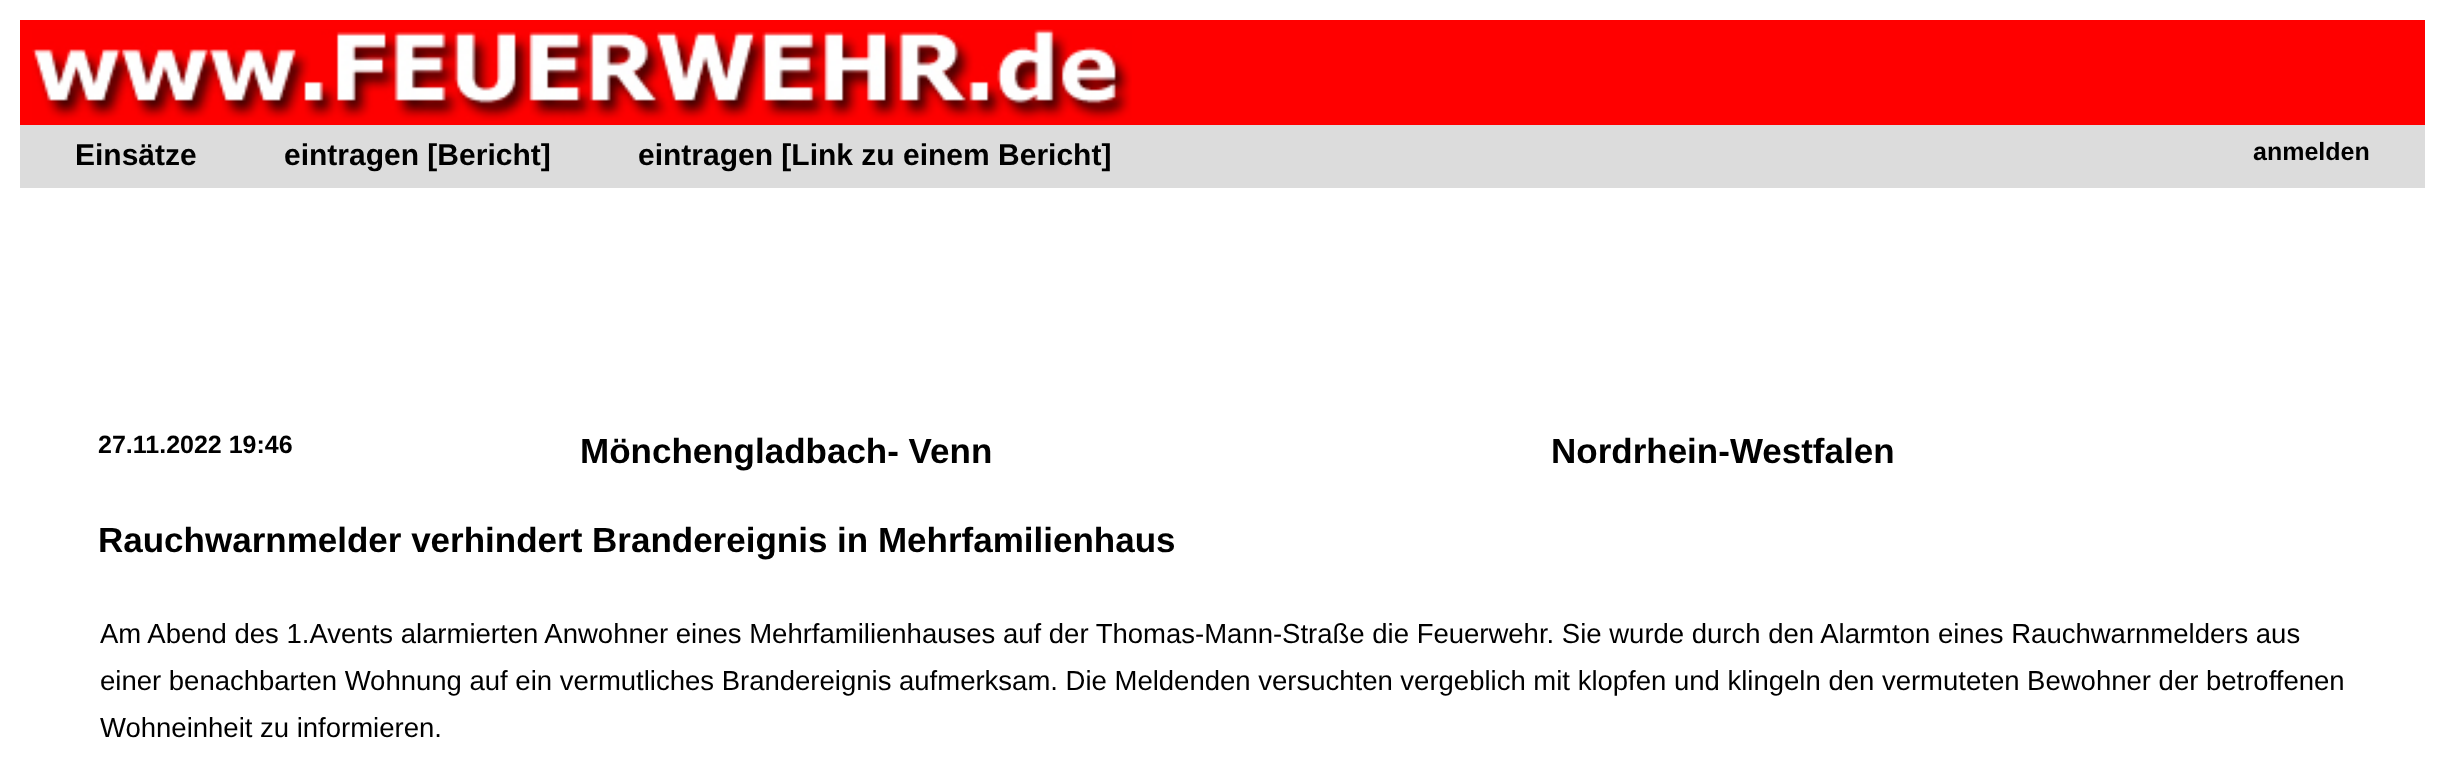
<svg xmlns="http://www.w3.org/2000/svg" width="2444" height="777">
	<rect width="100%" height="100%" fill="#FFFFFF" />
	<rect x="20" y="20" width="2405" height="105" fill="#FF0000" />
	<image x="32" y="29" width="1100" height="92" href="assets/img1.png" />
	<rect x="20" y="125" width="2405" height="63" fill="#DCDCDC" />
	<g font-family="Liberation Sans" font-size="30" font-weight="700" fill="#000000">
		<text x="75" y="165">Einsätze</text>
		<text x="284" y="165">eintragen [Bericht]</text>
		<text x="638" y="165">eintragen [Link zu einem Bericht]</text>
	</g>
	<g font-family="Liberation Sans" font-size="25" font-weight="700" fill="#000000">
		<text x="2253" y="160">anmelden</text>
		<text x="98" y="453">27.11.2022 19:46</text>
	</g>
	<g font-family="Liberation Sans" font-size="35" font-weight="700" fill="#000000">
		<text x="580" y="463">Mönchengladbach- Venn</text>
		<text x="1551" y="463">Nordrhein-Westfalen</text>
		<text x="98" y="552">Rauchwarnmelder verhindert Brandereignis in Mehrfamilienhaus</text>
	</g>
	<g font-family="Liberation Sans" font-size="27.5" fill="#000000">
		<text x="100" y="643">Am Abend des 1.Avents alarmierten Anwohner eines Mehrfamilienhauses auf der Thomas-Mann-Straße die Feuerwehr. Sie wurde durch den Alarmton eines Rauchwarnmelders aus</text>
		<text x="100" y="690">einer benachbarten Wohnung auf ein vermutliches Brandereignis aufmerksam. Die Meldenden versuchten vergeblich mit klopfen und klingeln den vermuteten Bewohner der betroffenen</text>
		<text x="100" y="737">Wohneinheit zu informieren.</text>
	</g>
</svg>
